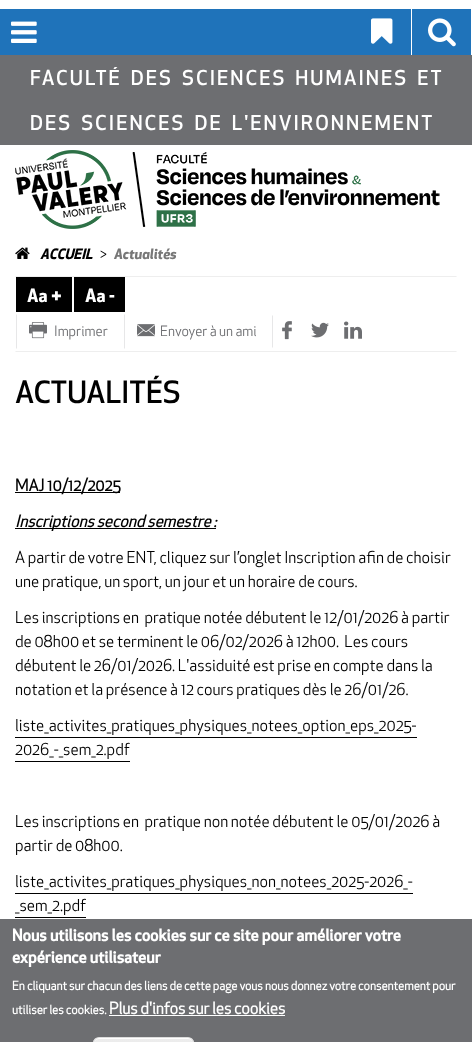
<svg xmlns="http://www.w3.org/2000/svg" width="472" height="1042">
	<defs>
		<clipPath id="clip1"><rect x="93" y="1037" width="101" height="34" rx="6" /></clipPath>
		<linearGradient id="g1" gradientUnits="userSpaceOnUse" x1="144" y1="1038" x2="144" y2="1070"><stop offset="0.05" stop-color="#EDEDED" /><stop offset="1" stop-color="#DFDFDF" /></linearGradient>
	</defs>
	<rect width="100%" height="100%" fill="#FFFFFF" />
	<rect x="0" y="9" width="471" height="46" fill="#1F73BA" />
	<image x="11" y="21" width="26" height="22" href="assets/img1.png" />
	<rect x="411" y="9" width="1" height="46" fill="#FFFFFF" />
	<image x="371" y="18" width="22" height="26" href="assets/img2.png" />
	<image x="428" y="18" width="28" height="29" href="assets/img3.png" />
	<rect x="0" y="55" width="472" height="90" fill="#6D6E71" />
	<g font-family="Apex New" font-size="20" font-weight="500" letter-spacing="2" fill="#FFFFFF">
		<text x="30" y="85" word-spacing="3">FACULTÉ DES SCIENCES HUMAINES ET</text>
		<text x="30" y="130" word-spacing="3">DES SCIENCES DE L'ENVIRONNEMENT</text>
	</g>
	<image x="15" y="150" width="425" height="79" href="assets/img4.png" />
	<image x="15" y="247" width="15" height="12" href="assets/img5.png" />
	<text x="40" y="259" font-family="'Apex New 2'" font-size="14" font-weight="700" font-style="italic" fill="#000000">ACCUEIL</text>
	<text x="100" y="259" font-family="Apex New" font-size="14" fill="#000000">&gt;</text>
	<text x="114" y="259" font-family="'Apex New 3'" font-size="14" font-weight="700" font-style="italic" fill="#777777">Actualités</text>
	<path d="M15 276H457L456 277H16Z" fill="#EEEEEE" />
	<path d="M457 352H15L16 351H456Z" fill="#EEEEEE" />
	<rect x="16" y="277" width="56" height="35" fill="#000000" />
	<text x="27" y="302" font-family="'Apex New 2'" font-size="18" font-weight="700" fill="#FFFFFF">Aa +</text>
	<rect x="74" y="277" width="51" height="35" fill="#000000" />
	<text x="85" y="302" font-family="'Apex New 2'" font-size="18" font-weight="700" fill="#FFFFFF">Aa -</text>
	<path d="M16 349V314L17 315V348Z" fill="#E7E7E8" />
	<image x="29" y="322" width="18" height="17" href="assets/img6.png" />
	<text x="54" y="336" font-family="Apex New" font-size="14" fill="#6D6E71">Imprimer</text>
	<path d="M124 349V314L125 315V348Z" fill="#E7E7E8" />
	<image x="137" y="324" width="18" height="13" href="assets/img7.png" />
	<text x="160" y="336" font-family="Apex New" font-size="14" fill="#6D6E71">Envoyer à un ami</text>
	<path d="M272 348V315L273 316V347Z" fill="#E7E7E8" />
	<image x="282" y="321" width="10" height="19" href="assets/img8.png" />
	<image x="311" y="322" width="18" height="16" href="assets/img9.png" />
	<image x="344" y="321" width="18" height="18" href="assets/img10.png" />
	<text x="15" y="403" font-family="Apex New" font-size="30" font-weight="500" fill="#000000">ACTUALITÉS</text>
	<rect x="15" y="492" width="105" height="1" fill="#000000" />
	<text x="15" y="491" font-family="Apex New" font-size="16" font-weight="700" fill="#000000">MAJ 10/12/2025</text>
	<rect x="15" y="528" width="201" height="1" fill="#000000" />
	<text x="15" y="527" font-family="Apex New" font-size="16" font-weight="700" font-style="italic" fill="#000000">Inscriptions second semestre :</text>
	<g font-family="Apex New" font-size="16" fill="#000000">
		<text x="15" y="563">A partir de votre ENT, cliquez sur l’onglet Inscription afin de choisir</text>
		<text x="15" y="587">une pratique, un sport, un jour et un horaire de cours.</text>
		<text x="15" y="623" xml:space="preserve">Les inscriptions en  pratique notée débutent le 12/01/2026 à partir</text>
		<text x="15" y="647" xml:space="preserve">de 08h00 et se terminent le 06/02/2026 à 12h00.  Les cours</text>
		<text x="15" y="671">débutent le 26/01/2026. L'assiduité est prise en compte dans la</text>
		<text x="15" y="695">notation et la présence à 12 cours pratiques dès le 26/01/26.</text>
		<text x="15" y="731">liste_activites_pratiques_physiques_notees_option_eps_2025-</text>
	</g>
	<rect x="15" y="737" width="402" height="1" fill="#000000" />
	<text x="15" y="755" font-family="Apex New" font-size="16" fill="#000000">2026_-_sem_2.pdf</text>
	<rect x="15" y="761" width="115" height="1" fill="#000000" />
	<g font-family="Apex New" font-size="16" fill="#000000">
		<text x="15" y="827" xml:space="preserve">Les inscriptions en  pratique non notée débutent le 05/01/2026 à</text>
		<text x="15" y="851">partir de 08h00.</text>
		<text x="15" y="887">liste_activites_pratiques_physiques_non_notees_2025-2026_-</text>
	</g>
	<rect x="15" y="893" width="398" height="1" fill="#000000" />
	<text x="15" y="911" font-family="Apex New" font-size="16" fill="#000000">_sem_2.pdf</text>
	<rect x="15" y="917" width="71" height="1" fill="#000000" />
	<rect x="0" y="919" width="472" height="123" fill="#6D6E71" />
	<g font-family="'Apex New 3'" font-size="16" font-weight="700" fill="#FFFFFF">
		<text x="12" y="941">Nous utilisons les cookies sur ce site pour améliorer votre</text>
		<text x="12" y="963">expérience utilisateur</text>
	</g>
	<g font-family="Apex New" font-size="12" font-weight="700" fill="#FFFFFF">
		<text x="12" y="990">En cliquant sur chacun des liens de cette page vous nous donnez votre consentement pour</text>
		<text x="12" y="1014">utiliser les cookies.</text>
	</g>
	<text x="109" y="1014" font-family="Apex New" font-size="16" font-weight="700" fill="#FFFFFF">Plus d'infos sur les cookies</text>
	<rect x="109" y="1015" width="176" height="1" fill="#FFFFFF" />
	<g clip-path="url(#clip1)">
		<rect x="93" y="1038" width="101" height="4" fill="url(#g1)" />
	</g>
	<path d="M99 1039H188C191 1039 193 1041 193 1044C193 1034 179 1038 173 1038H114C108 1038 94 1034 94 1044C94 1041 96 1039 99 1039Z" fill="#FFFFFF" />
	<rect x="93.5" y="1037.5" width="100" height="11" rx="5.5" fill="none" stroke="#DCDCDC" />
</svg>
